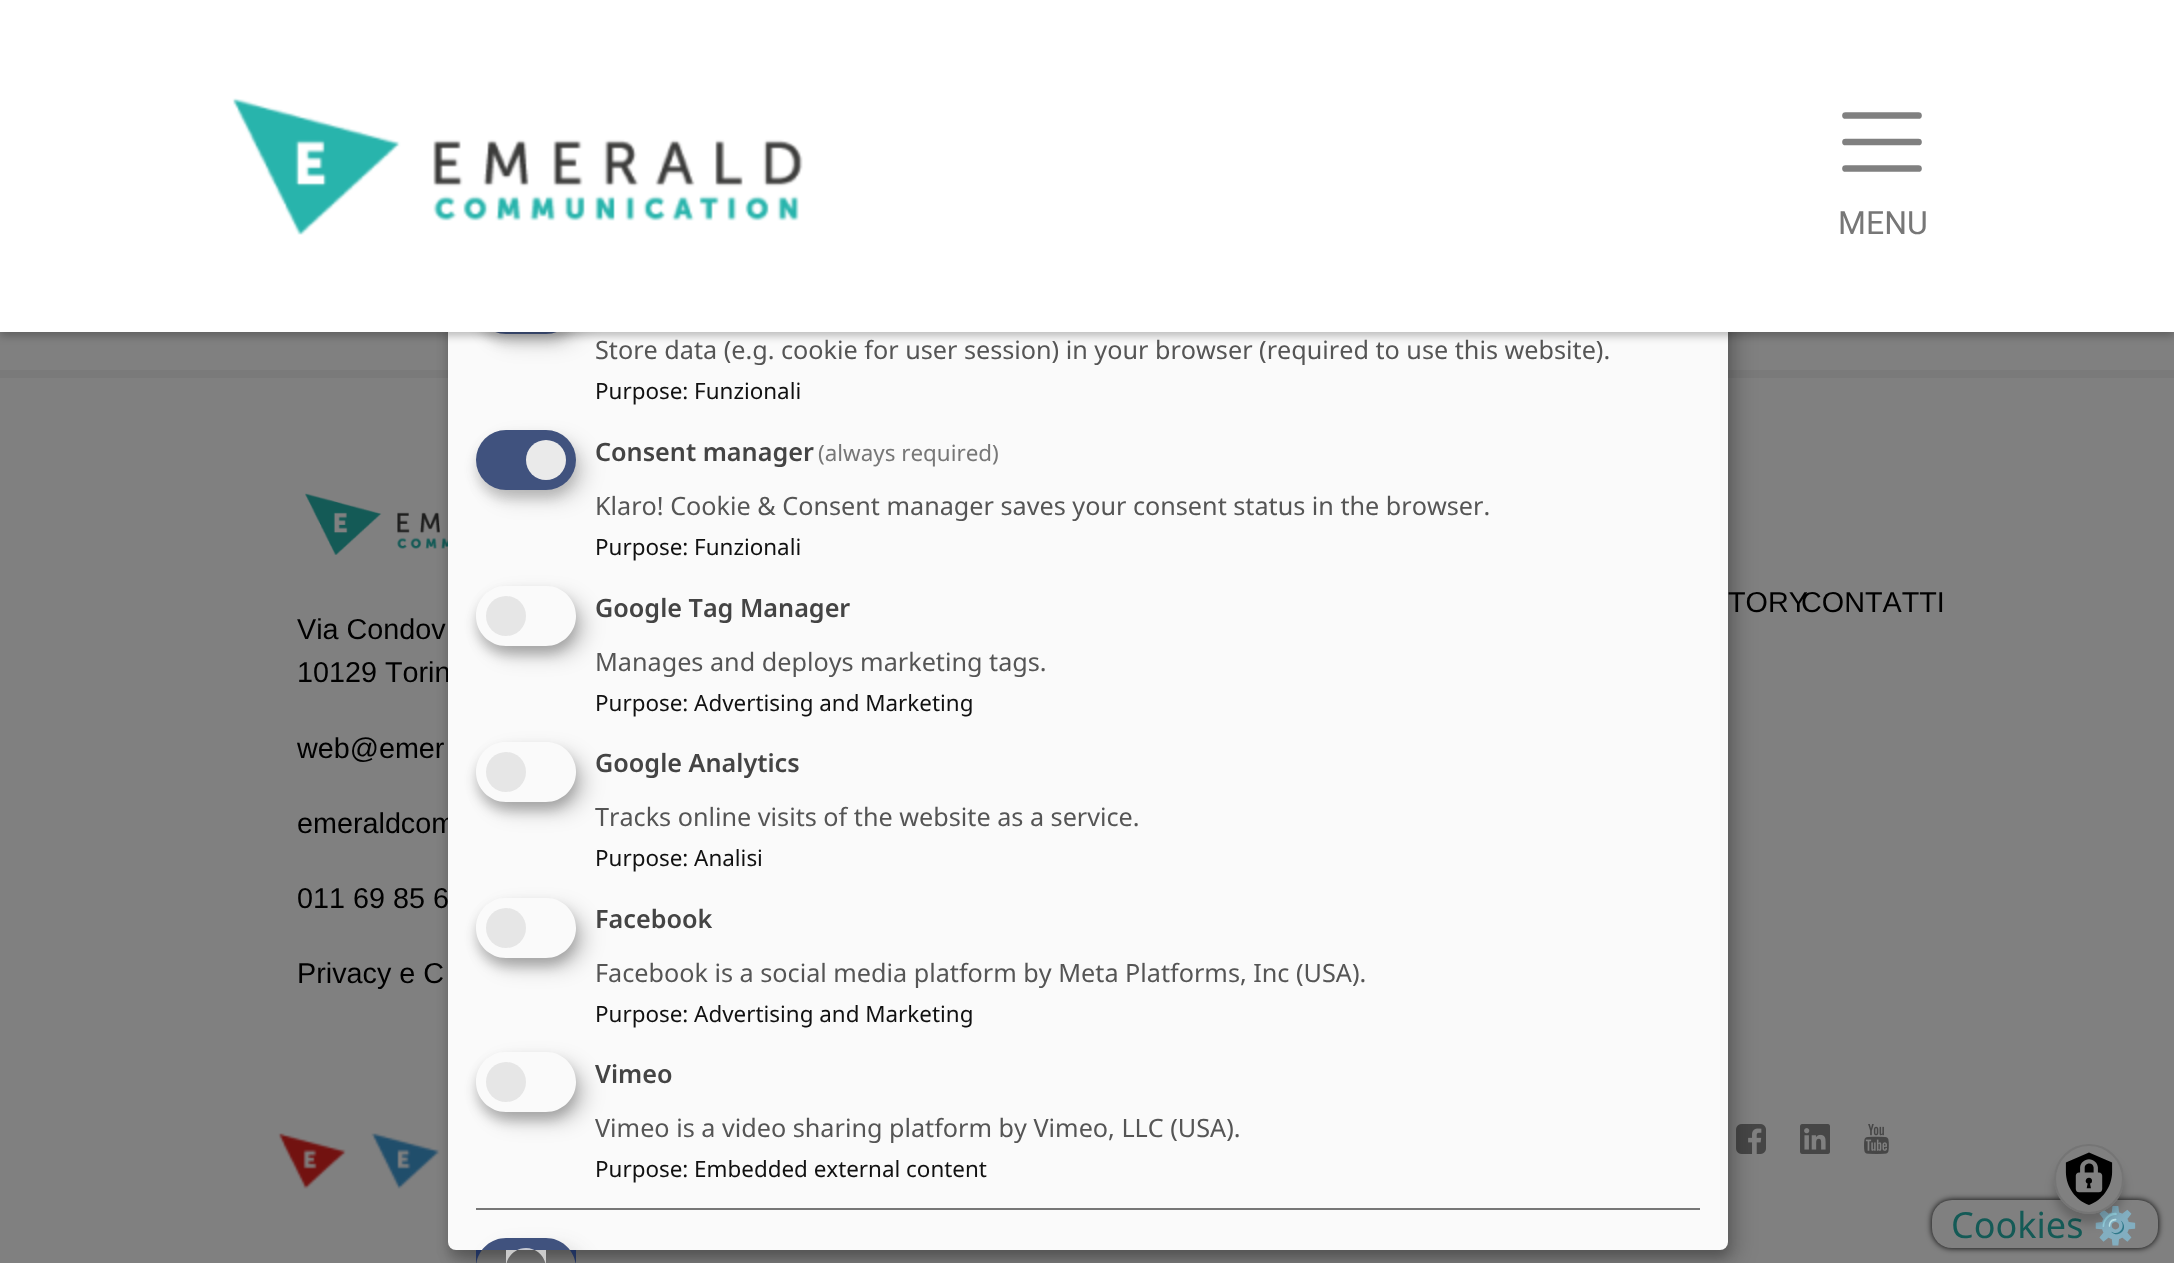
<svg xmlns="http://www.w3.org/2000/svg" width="2174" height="1263">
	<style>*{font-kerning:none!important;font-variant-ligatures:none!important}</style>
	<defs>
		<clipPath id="clip1"><path d="M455 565H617V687H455ZM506 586H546C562.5 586 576 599.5 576 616C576 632.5 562.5 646 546 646H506C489.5 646 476 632.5 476 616C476 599.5 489.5 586 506 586Z" clip-rule="evenodd" /></clipPath>
		<clipPath id="clip2"><path d="M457 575H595V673H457ZM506 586H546C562.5 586 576 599.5 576 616C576 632.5 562.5 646 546 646H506C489.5 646 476 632.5 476 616C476 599.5 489.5 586 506 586Z" clip-rule="evenodd" /></clipPath>
		<clipPath id="clip3"><path d="M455 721H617V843H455ZM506 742H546C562.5 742 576 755.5 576 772C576 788.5 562.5 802 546 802H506C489.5 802 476 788.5 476 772C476 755.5 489.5 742 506 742Z" clip-rule="evenodd" /></clipPath>
		<clipPath id="clip4"><path d="M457 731H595V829H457ZM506 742H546C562.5 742 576 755.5 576 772C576 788.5 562.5 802 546 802H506C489.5 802 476 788.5 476 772C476 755.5 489.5 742 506 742Z" clip-rule="evenodd" /></clipPath>
		<clipPath id="clip5"><path d="M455 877H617V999H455ZM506 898H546C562.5 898 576 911.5 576 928C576 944.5 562.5 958 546 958H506C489.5 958 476 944.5 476 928C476 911.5 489.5 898 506 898Z" clip-rule="evenodd" /></clipPath>
		<clipPath id="clip6"><path d="M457 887H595V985H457ZM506 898H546C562.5 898 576 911.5 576 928C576 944.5 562.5 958 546 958H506C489.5 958 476 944.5 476 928C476 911.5 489.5 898 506 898Z" clip-rule="evenodd" /></clipPath>
		<clipPath id="clip7"><path d="M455 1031H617V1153H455ZM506 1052H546C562.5 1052 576 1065.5 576 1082C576 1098.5 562.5 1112 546 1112H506C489.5 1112 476 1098.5 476 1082C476 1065.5 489.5 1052 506 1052Z" clip-rule="evenodd" /></clipPath>
		<clipPath id="clip8"><path d="M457 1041H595V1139H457ZM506 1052H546C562.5 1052 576 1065.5 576 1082C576 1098.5 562.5 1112 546 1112H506C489.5 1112 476 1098.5 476 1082C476 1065.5 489.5 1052 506 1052Z" clip-rule="evenodd" /></clipPath>
		<clipPath id="clip9"><rect x="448" y="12" width="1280" height="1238" rx="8" /></clipPath>
		<clipPath id="clip10"><path d="M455 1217H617V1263H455ZM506 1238H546C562.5 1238 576 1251.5 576 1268C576 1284.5 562.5 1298 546 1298H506C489.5 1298 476 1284.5 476 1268C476 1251.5 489.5 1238 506 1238Z" clip-rule="evenodd" /></clipPath>
	</defs>
	<rect width="100%" height="100%" fill="#808080" />
	<rect x="0" y="370" width="2174" height="8" fill="#7A7A7A" />
	<g font-family="Liberation Sans" font-size="28.75" fill="#000000">
		<text x="297" y="682">10129 Torin</text>
		<text x="297" y="833">emeraldcom</text>
		<text x="297" y="908">011 69 85 6</text>
	</g>
	<image x="305" y="493" width="143" height="62" href="assets/img2.png" />
	<image x="371" y="1133" width="69" height="56" href="assets/img4.png" />
	<image x="1736" y="1124" width="30" height="30" href="assets/img5.png" />
	<rect x="458" y="22" width="1280" height="1238" rx="8" fill="#000000" fill-opacity="0.19" filter="blur(10px)" />
	<rect x="448" y="20" width="1280" height="1238" rx="8" fill="#000000" fill-opacity="0.2" filter="blur(6px)" />
	<rect x="448" y="12" width="1280" height="1238" rx="8" fill="#FAFAFA" />
	<rect x="486" y="284" width="100" height="60" rx="30" fill="#000000" fill-opacity="0.15" filter="blur(10px)" />
	<rect x="476" y="282" width="100" height="60" rx="30" fill="#323232" fill-opacity="0.2" filter="blur(6px)" />
	<rect x="476" y="274" width="100" height="60" rx="30" fill="#40527E" />
	<rect x="0" y="4" width="2174" height="332" fill="#000000" fill-opacity="0.25" filter="blur(4px)" />
	<rect x="0" y="0" width="2174" height="332" fill="#FFFFFF" />
	<image x="232" y="98" width="571" height="137" href="assets/img1.png" />
	<path d="M1845.5 115.5H1918.5M1845.5 142H1918.5M1845.5 168.5H1918.5" fill="none" stroke="#808080" stroke-width="6.7" stroke-linecap="round" />
	<text x="1838" y="234" font-family="Heebo" font-size="32" fill="#777777">MENU</text>
	<g font-family="Liberation Sans" font-size="28.75" fill="#000000">
		<text x="1728" y="612">TORY</text>
		<text x="1801" y="612">CONTATTI</text>
		<text x="297" y="639">Via Condov</text>
		<text x="297" y="758">web@emer</text>
		<text x="297" y="983">Privacy e C</text>
	</g>
	<image x="278" y="1133" width="68" height="56" href="assets/img3.png" />
	<image x="1800" y="1124" width="30" height="30" href="assets/img6.png" />
	<image x="1864" y="1124" width="25" height="30" href="assets/img7.png" />
	<rect x="1932" y="1200" width="226" height="48" rx="20" fill="#000000" filter="blur(3px)" />
	<rect x="1932" y="1200" width="226" height="48" rx="20" fill="#808080" />
	<text x="1951" y="1238" font-family="Noto Sans" font-size="36" fill="#145A56">Cookies</text>
	<text x="2093" y="1238" font-family="Noto Color Emoji" font-size="36" font-weight="700" fill="#145A56">⚙</text>
	<text x="595" y="359" font-family="Noto Sans" font-size="25.2" fill="#555555">Store data (e.g. cookie for user session) in your browser (required to use this website).</text>
	<text x="595" y="399" font-family="Noto Sans" font-size="22.4" fill="#111111">Purpose: Funzionali</text>
	<rect x="486" y="440" width="100" height="60" rx="30" fill="#000000" fill-opacity="0.15" filter="blur(10px)" />
	<rect x="476" y="438" width="100" height="60" rx="30" fill="#323232" fill-opacity="0.2" filter="blur(6px)" />
	<rect x="476" y="430" width="100" height="60" rx="30" fill="#40527E" />
	<circle cx="546" cy="460" r="20" fill="#EAEAEA" />
	<text x="595" y="461" font-family="Noto Sans" font-size="25.2" font-weight="600" fill="#444444">Consent manager</text>
	<text x="818" y="461" font-family="Noto Sans" font-size="22.4" fill="#777777">(always required)</text>
	<text x="595" y="515" font-family="Noto Sans" font-size="25.2" fill="#555555">Klaro! Cookie &amp; Consent manager saves your consent status in the browser.</text>
	<text x="595" y="555" font-family="Noto Sans" font-size="22.4" fill="#111111">Purpose: Funzionali</text>
	<g clip-path="url(#clip1)">
		<rect x="486" y="596" width="100" height="60" rx="30" fill="#000000" fill-opacity="0.19" filter="blur(10px)" />
	</g>
	<g clip-path="url(#clip2)">
		<rect x="476" y="594" width="100" height="60" rx="30" fill="#000000" fill-opacity="0.2" filter="blur(6px)" />
	</g>
	<circle cx="506" cy="616" r="20" fill="#E6E6E6" />
	<text x="595" y="617" font-family="Noto Sans" font-size="25.2" font-weight="600" fill="#444444">Google Tag Manager</text>
	<text x="595" y="671" font-family="Noto Sans" font-size="25.2" fill="#555555">Manages and deploys marketing tags.</text>
	<text x="595" y="711" font-family="Noto Sans" font-size="22.4" fill="#111111">Purpose: Advertising and Marketing</text>
	<g clip-path="url(#clip3)">
		<rect x="486" y="752" width="100" height="60" rx="30" fill="#000000" fill-opacity="0.19" filter="blur(10px)" />
	</g>
	<g clip-path="url(#clip4)">
		<rect x="476" y="750" width="100" height="60" rx="30" fill="#000000" fill-opacity="0.2" filter="blur(6px)" />
	</g>
	<circle cx="506" cy="772" r="20" fill="#E6E6E6" />
	<text x="595" y="772" font-family="Noto Sans" font-size="25.2" font-weight="600" fill="#444444">Google Analytics</text>
	<text x="595" y="826" font-family="Noto Sans" font-size="25.2" fill="#555555">Tracks online visits of the website as a service.</text>
	<text x="595" y="866" font-family="Noto Sans" font-size="22.4" fill="#111111">Purpose: Analisi</text>
	<g clip-path="url(#clip5)">
		<rect x="486" y="908" width="100" height="60" rx="30" fill="#000000" fill-opacity="0.19" filter="blur(10px)" />
	</g>
	<g clip-path="url(#clip6)">
		<rect x="476" y="906" width="100" height="60" rx="30" fill="#000000" fill-opacity="0.2" filter="blur(6px)" />
	</g>
	<circle cx="506" cy="928" r="20" fill="#E6E6E6" />
	<text x="595" y="928" font-family="Noto Sans" font-size="25.2" font-weight="600" fill="#444444">Facebook</text>
	<text x="595" y="982" font-family="Noto Sans" font-size="25.2" fill="#555555">Facebook is a social media platform by Meta Platforms, Inc (USA).</text>
	<text x="595" y="1022" font-family="Noto Sans" font-size="22.4" fill="#111111">Purpose: Advertising and Marketing</text>
	<g clip-path="url(#clip7)">
		<rect x="486" y="1062" width="100" height="60" rx="30" fill="#000000" fill-opacity="0.19" filter="blur(10px)" />
	</g>
	<g clip-path="url(#clip8)">
		<rect x="476" y="1060" width="100" height="60" rx="30" fill="#000000" fill-opacity="0.2" filter="blur(6px)" />
	</g>
	<circle cx="506" cy="1082" r="20" fill="#E6E6E6" />
	<text x="595" y="1083" font-family="Noto Sans" font-size="25.2" font-weight="600" fill="#444444">Vimeo</text>
	<text x="595" y="1137" font-family="Noto Sans" font-size="25.2" fill="#555555">Vimeo is a video sharing platform by Vimeo, LLC (USA).</text>
	<text x="595" y="1177" font-family="Noto Sans" font-size="22.4" fill="#111111">Purpose: Embedded external content</text>
	<rect x="476" y="1208" width="1224" height="2" fill="#777777" />
	<g clip-path="url(#clip9)">
		<g clip-path="url(#clip10)">
			<rect x="486" y="1248" width="100" height="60" rx="30" fill="#323232" fill-opacity="0.19" filter="blur(10px)" />
		</g>
	</g>
	<path d="M506 1238H546C562.5 1238 576 1251.5 576 1268V1250H476V1268C476 1251.5 489.5 1238 506 1238Z" fill="#12285F" fill-opacity="0.8" />
	<path d="M526 1248C537 1248 546 1257 546 1268V1250H506V1268C506 1257 515 1248 526 1248Z" fill="#E6E6E6" fill-opacity="0.8" />
	<rect x="2054" y="1154" width="70" height="70" rx="35" fill="#000000" fill-opacity="0.2" filter="blur(5px)" />
	<circle cx="2089" cy="1179" r="35" fill="#808080" />
	<image x="2065" y="1152" width="48" height="53" href="assets/img8.png" />
	<circle cx="2089" cy="1179" r="34" fill="none" stroke="#757575" stroke-width="2" />
</svg>
